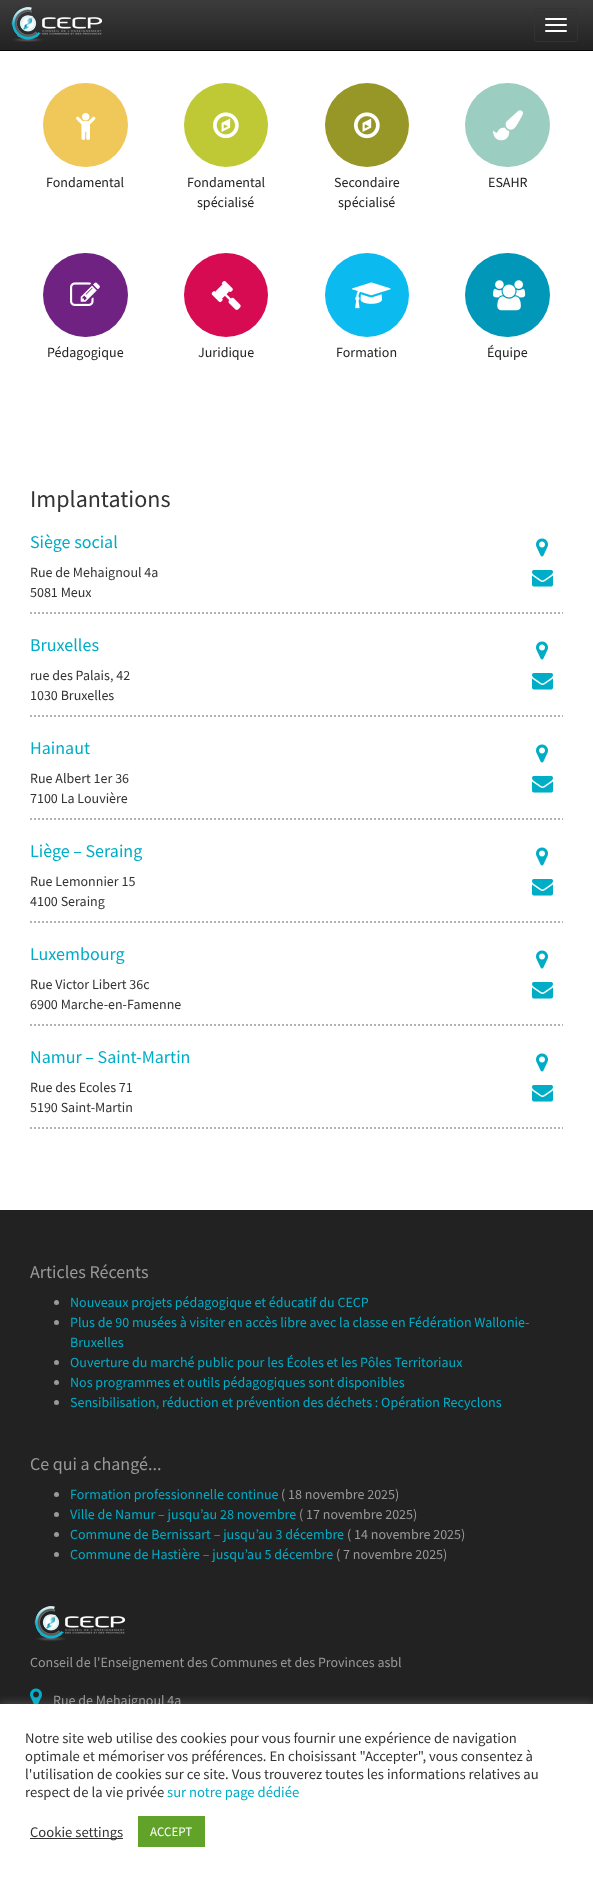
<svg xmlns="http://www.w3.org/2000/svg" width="593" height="1877">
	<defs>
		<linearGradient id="g1" gradientUnits="userSpaceOnUse" x1="297" y1="0" x2="297" y2="50"><stop offset="0" stop-color="#3C3C3C" /><stop offset="1" stop-color="#222222" /></linearGradient>
	</defs>
	<rect width="100%" height="100%" fill="#FFFFFF" />
	<rect x="0" y="0" width="593" height="50" fill="url(#g1)" />
	<rect x="0" y="50" width="593" height="1" fill="#080808" />
	<image x="11" y="7" width="91" height="35" href="assets/img1.png" />
	<rect x="534.5" y="8.5" width="43" height="33" rx="3.5" fill="none" stroke="#333333" />
	<rect x="545" y="18" width="22" height="2" rx="1" fill="#FFFFFF" />
	<rect x="545" y="24" width="22" height="2" rx="1" fill="#FFFFFF" />
	<rect x="545" y="30" width="22" height="2" rx="1" fill="#FFFFFF" />
	<rect x="43" y="83" width="85" height="84" rx="42" fill="#F0C859" />
	<image x="76" y="113" width="20" height="27" href="assets/img2.png" />
	<text x="46" y="187" font-family="Source Sans Pro" font-size="14" fill="#222222">Fondamental</text>
	<circle cx="226" cy="125" r="42" fill="#BFC835" />
	<image x="213" y="112" width="26" height="27" href="assets/img3.png" />
	<g font-family="Source Sans Pro" font-size="14" fill="#222222">
		<text x="187" y="187">Fondamental</text>
		<text x="197" y="207">spécialisé</text>
	</g>
	<circle cx="367" cy="125" r="42" fill="#969727" />
	<image x="354" y="112" width="26" height="27" href="assets/img4.png" />
	<g font-family="Source Sans Pro" font-size="14" fill="#222222">
		<text x="334" y="187">Secondaire</text>
		<text x="338" y="207">spécialisé</text>
	</g>
	<rect x="465" y="83" width="85" height="84" rx="42" fill="#9BCEC0" />
	<image x="493" y="110" width="30" height="31" href="assets/img5.png" />
	<text x="488" y="187" font-family="Source Sans Pro" font-size="14" fill="#222222">ESAHR</text>
	<rect x="43" y="253" width="85" height="84" rx="42" fill="#702283" />
	<image x="70" y="282" width="30" height="24" href="assets/img6.png" />
	<text x="47" y="357" font-family="Source Sans Pro" font-size="14" fill="#222222">Pédagogique</text>
	<circle cx="226" cy="295" r="42" fill="#D60B52" />
	<image x="211" y="281" width="30" height="29" href="assets/img7.png" />
	<text x="198" y="357" font-family="Source Sans Pro" font-size="14" fill="#222222">Juridique</text>
	<circle cx="367" cy="295" r="42" fill="#0BBBEF" />
	<image x="352" y="282" width="39" height="27" href="assets/img8.png" />
	<text x="336" y="357" font-family="Source Sans Pro" font-size="14" fill="#222222">Formation</text>
	<rect x="465" y="253" width="85" height="84" rx="42" fill="#0097B9" />
	<image x="493" y="280" width="33" height="31" href="assets/img9.png" />
	<text x="487" y="357" font-family="Source Sans Pro" font-size="14" fill="#222222">Équipe</text>
	<text x="30" y="507" font-family="Source Sans Pro" font-size="24" fill="#333333">Implantations</text>
	<path d="M30 613H563" fill="none" stroke="#B3B3B3" stroke-width="2" stroke-dasharray="2 2" />
	<text x="30" y="548" font-family="Source Sans Pro" font-size="18" fill="#00ADC7">Siège social</text>
	<image x="536" y="538" width="12" height="19" href="assets/img10.png" />
	<image x="532" y="570" width="21" height="17" href="assets/img11.png" />
	<g font-family="Source Sans Pro" font-size="14" fill="#333333">
		<text x="30" y="577">Rue de Mehaignoul 4a</text>
		<text x="30" y="597">5081 Meux</text>
	</g>
	<path d="M30 716H563" fill="none" stroke="#B3B3B3" stroke-width="2" stroke-dasharray="2 2" />
	<text x="30" y="651" font-family="Source Sans Pro" font-size="18" fill="#00ADC7">Bruxelles</text>
	<image x="536" y="641" width="12" height="19" href="assets/img10.png" />
	<image x="532" y="673" width="21" height="17" href="assets/img11.png" />
	<g font-family="Source Sans Pro" font-size="14" fill="#333333">
		<text x="30" y="680">rue des Palais, 42</text>
		<text x="30" y="700">1030 Bruxelles</text>
	</g>
	<path d="M30 819H563" fill="none" stroke="#B3B3B3" stroke-width="2" stroke-dasharray="2 2" />
	<text x="30" y="754" font-family="Source Sans Pro" font-size="18" fill="#00ADC7">Hainaut</text>
	<image x="536" y="744" width="12" height="19" href="assets/img10.png" />
	<image x="532" y="776" width="21" height="17" href="assets/img11.png" />
	<g font-family="Source Sans Pro" font-size="14" fill="#333333">
		<text x="30" y="783">Rue Albert 1er 36</text>
		<text x="30" y="803">7100 La Louvière</text>
	</g>
	<path d="M30 922H563" fill="none" stroke="#B3B3B3" stroke-width="2" stroke-dasharray="2 2" />
	<text x="30" y="857" font-family="Source Sans Pro" font-size="18" fill="#00ADC7">Liège – Seraing</text>
	<image x="536" y="847" width="12" height="19" href="assets/img10.png" />
	<image x="532" y="879" width="21" height="17" href="assets/img11.png" />
	<g font-family="Source Sans Pro" font-size="14" fill="#333333">
		<text x="30" y="886">Rue Lemonnier 15</text>
		<text x="30" y="906">4100 Seraing</text>
	</g>
	<path d="M30 1025H563" fill="none" stroke="#B3B3B3" stroke-width="2" stroke-dasharray="2 2" />
	<text x="30" y="960" font-family="Source Sans Pro" font-size="18" fill="#00ADC7">Luxembourg</text>
	<image x="536" y="950" width="12" height="19" href="assets/img10.png" />
	<image x="532" y="982" width="21" height="17" href="assets/img11.png" />
	<g font-family="Source Sans Pro" font-size="14" fill="#333333">
		<text x="30" y="989">Rue Victor Libert 36c</text>
		<text x="30" y="1009">6900 Marche-en-Famenne</text>
	</g>
	<path d="M30 1128H563" fill="none" stroke="#B3B3B3" stroke-width="2" stroke-dasharray="2 2" />
	<text x="30" y="1063" font-family="Source Sans Pro" font-size="18" fill="#00ADC7">Namur – Saint-Martin</text>
	<image x="536" y="1053" width="12" height="19" href="assets/img10.png" />
	<image x="532" y="1085" width="21" height="17" href="assets/img11.png" />
	<g font-family="Source Sans Pro" font-size="14" fill="#333333">
		<text x="30" y="1092">Rue des Ecoles 71</text>
		<text x="30" y="1112">5190 Saint-Martin</text>
	</g>
	<rect x="0" y="1210" width="593" height="494" fill="#222222" />
	<text x="30" y="1278" font-family="Source Sans Pro" font-size="18" fill="#999999">Articles Récents</text>
	<circle cx="56.5" cy="1302.5" r="2.5" fill="#999999" />
	<text x="70" y="1307" font-family="Source Sans Pro" font-size="14" fill="#00ADC7">Nouveaux projets pédagogique et éducatif du CECP</text>
	<circle cx="56.5" cy="1322.5" r="2.5" fill="#999999" />
	<g font-family="Source Sans Pro" font-size="14" fill="#00ADC7">
		<text x="70" y="1327">Plus de 90 musées à visiter en accès libre avec la classe en Fédération Wallonie-</text>
		<text x="70" y="1347">Bruxelles</text>
	</g>
	<circle cx="56.5" cy="1362.5" r="2.5" fill="#999999" />
	<text x="70" y="1367" font-family="Source Sans Pro" font-size="14" fill="#00ADC7">Ouverture du marché public pour les Écoles et les Pôles Territoriaux</text>
	<circle cx="56.5" cy="1382.5" r="2.5" fill="#999999" />
	<text x="70" y="1387" font-family="Source Sans Pro" font-size="14" fill="#00ADC7">Nos programmes et outils pédagogiques sont disponibles</text>
	<circle cx="56.5" cy="1402.5" r="2.5" fill="#999999" />
	<text x="70" y="1407" font-family="Source Sans Pro" font-size="14" fill="#00ADC7">Sensibilisation, réduction et prévention des déchets : Opération Recyclons</text>
	<text x="30" y="1470" font-family="Source Sans Pro" font-size="18" fill="#999999">Ce qui a changé...</text>
	<circle cx="56.5" cy="1494.5" r="2.5" fill="#999999" />
	<text x="70" y="1499" font-family="Source Sans Pro" font-size="14" fill="#00ADC7">Formation professionnelle continue</text>
	<text x="281" y="1499" font-family="Source Sans Pro" font-size="14" fill="#999999">( 18 novembre 2025)</text>
	<circle cx="56.5" cy="1514.5" r="2.5" fill="#999999" />
	<text x="70" y="1519" font-family="Source Sans Pro" font-size="14" fill="#00ADC7">Ville de Namur – jusqu’au 28 novembre</text>
	<text x="299" y="1519" font-family="Source Sans Pro" font-size="14" fill="#999999">( 17 novembre 2025)</text>
	<circle cx="56.5" cy="1534.5" r="2.5" fill="#999999" />
	<text x="70" y="1539" font-family="Source Sans Pro" font-size="14" fill="#00ADC7">Commune de Bernissart – jusqu’au 3 décembre</text>
	<text x="347" y="1539" font-family="Source Sans Pro" font-size="14" fill="#999999">( 14 novembre 2025)</text>
	<circle cx="56.5" cy="1554.5" r="2.5" fill="#999999" />
	<text x="70" y="1559" font-family="Source Sans Pro" font-size="14" fill="#00ADC7">Commune de Hastière – jusqu’au 5 décembre</text>
	<text x="336" y="1559" font-family="Source Sans Pro" font-size="14" fill="#999999">( 7 novembre 2025)</text>
	<image x="34" y="1606" width="91" height="36" href="assets/img12.png" />
	<text x="30" y="1667" font-family="Source Sans Pro" font-size="14" fill="#999999">Conseil de l'Enseignement des Communes et des Provinces asbl</text>
	<image x="30" y="1688" width="12" height="16" href="assets/img13.png" />
	<text x="53" y="1705" font-family="Source Sans Pro" font-size="14" fill="#999999">Rue de Mehaignoul 4a</text>
	<rect x="0" y="1703" width="593" height="173" fill="#ACABAB" fill-opacity="0.3" filter="blur(5px)" />
	<rect x="0" y="1704" width="593" height="173" fill="#FFFFFF" />
	<g font-family="Source Sans Pro" font-size="14.65" fill="#333333">
		<text x="25" y="1743">Notre site web utilise des cookies pour vous fournir une expérience de navigation</text>
		<text x="25" y="1761">optimale et mémoriser vos préférences. En choisissant "Accepter", vous consentez à</text>
		<text x="25" y="1779">l'utilisation de cookies sur ce site. Vous trouverez toutes les informations relatives au</text>
		<text x="25" y="1797">respect de la vie privée</text>
	</g>
	<text x="167" y="1797" font-family="Source Sans Pro" font-size="14.65" fill="#00ADC7">sur notre page dédiée</text>
	<rect x="30" y="1838" width="93" height="1" fill="#333333" />
	<text x="30" y="1837" font-family="Source Sans Pro" font-size="14.65" fill="#333333">Cookie settings</text>
	<rect x="138" y="1816" width="67" height="31" fill="#61A229" />
	<text x="150" y="1836" font-family="Source Sans Pro" font-size="13" fill="#FFFFFF">ACCEPT</text>
</svg>
